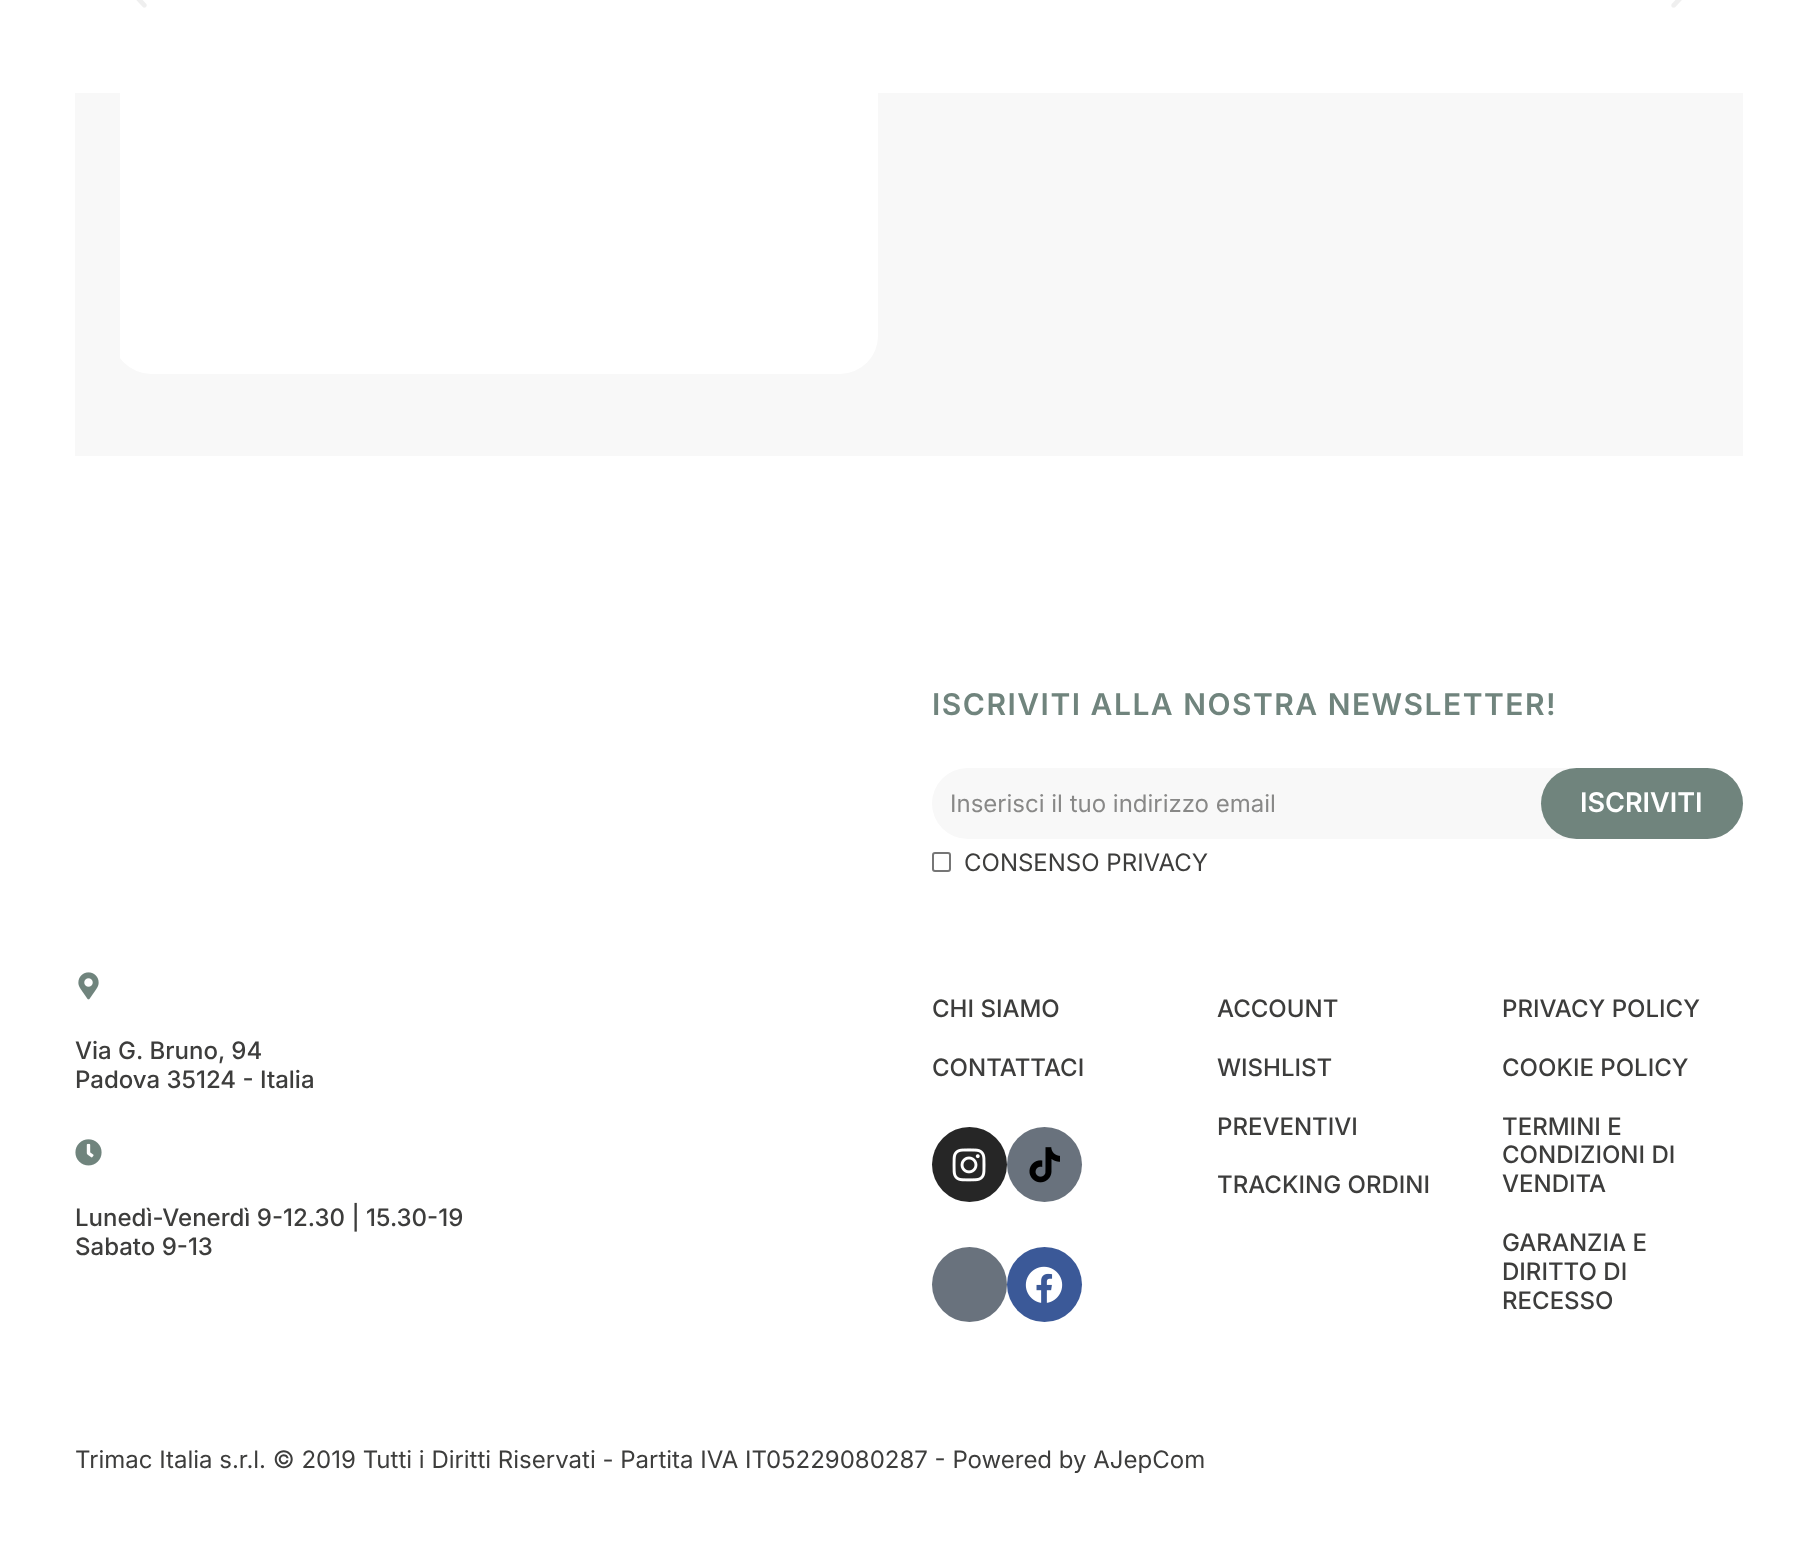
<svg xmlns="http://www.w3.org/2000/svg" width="1817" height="1555">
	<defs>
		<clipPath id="clip1"><rect x="120" y="0" width="1578" height="389" /></clipPath>
	</defs>
	<rect width="100%" height="100%" fill="#FFFFFF" />
	<rect x="75" y="93" width="1668" height="363" fill="#F8F8F8" />
	<g clip-path="url(#clip1)">
		<rect x="113" y="-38" width="765" height="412" rx="38" fill="#FFFFFF" />
	</g>
	<image x="136" y="0" width="11" height="8" href="assets/img1.png" />
	<image x="1671" y="0" width="11" height="8" href="assets/img2.png" />
	<text x="932" y="715" font-family="Inter" font-size="30" font-weight="600" letter-spacing="1.5" fill="#70847D">ISCRIVITI ALLA NOSTRA NEWSLETTER!</text>
	<rect x="932" y="768" width="811" height="71" rx="35.5" fill="#F8F8F8" />
	<text x="950" y="812" font-family="Inter" font-size="24" fill="#888887">Inserisci il tuo indirizzo email</text>
	<rect x="1541" y="768" width="202" height="71" rx="35.5" fill="#70847D" />
	<text x="1580" y="812" font-family="Inter" font-size="27" font-weight="600" fill="#FFFFFF">ISCRIVITI</text>
	<rect x="933" y="853" width="17" height="18" rx="2" fill="none" stroke="#767676" stroke-width="2" />
	<text x="964" y="871" font-family="Inter" font-size="24" fill="#3D3D3C">CONSENSO PRIVACY</text>
	<image x="78" y="972" width="21" height="28" href="assets/img3.png" />
	<g font-family="Inter" font-size="24" font-weight="500" fill="#3D3D3C">
		<text x="75" y="1059">Via G. Bruno, 94</text>
		<text x="75" y="1088">Padova 35124 - Italia</text>
	</g>
	<image x="75" y="1139" width="27" height="27" href="assets/img4.png" />
	<g font-family="Inter" font-size="24" font-weight="500" fill="#3D3D3C">
		<text x="75" y="1226">Lunedì-Venerdì 9-12.30 | 15.30-19</text>
		<text x="75" y="1255">Sabato 9-13</text>
		<text x="932" y="1017">CHI SIAMO</text>
		<text x="932" y="1076">CONTATTACI</text>
	</g>
	<circle cx="969.5" cy="1164.5" r="37.5" fill="#262626" />
	<image x="952" y="1148" width="34" height="34" href="assets/img5.png" />
	<circle cx="1044.5" cy="1164.5" r="37.5" fill="#69727D" />
	<image x="1029" y="1147" width="31" height="36" href="assets/img6.png" />
	<circle cx="969.5" cy="1284.5" r="37.5" fill="#69727D" />
	<circle cx="1044.5" cy="1284.5" r="37.5" fill="#3B5998" />
	<image x="1025" y="1266" width="38" height="37" href="assets/img7.png" />
	<g font-family="Inter" font-size="24" font-weight="500" fill="#3D3D3C">
		<text x="1217" y="1017">ACCOUNT</text>
		<text x="1217" y="1076">WISHLIST</text>
		<text x="1217" y="1135">PREVENTIVI</text>
		<text x="1217" y="1193">TRACKING ORDINI</text>
		<text x="1502" y="1017">PRIVACY POLICY</text>
		<text x="1502" y="1076">COOKIE POLICY</text>
		<text x="1502" y="1135">TERMINI E</text>
		<text x="1502" y="1163">CONDIZIONI DI</text>
		<text x="1502" y="1192">VENDITA</text>
		<text x="1502" y="1251">GARANZIA E</text>
		<text x="1502" y="1280">DIRITTO DI</text>
		<text x="1502" y="1309">RECESSO</text>
	</g>
	<text x="75" y="1468" font-family="Inter" font-size="24" fill="#3D3D3C">Trimac Italia s.r.l. © 2019 Tutti i Diritti Riservati - Partita IVA IT05229080287 - Powered by AJepCom</text>
</svg>
